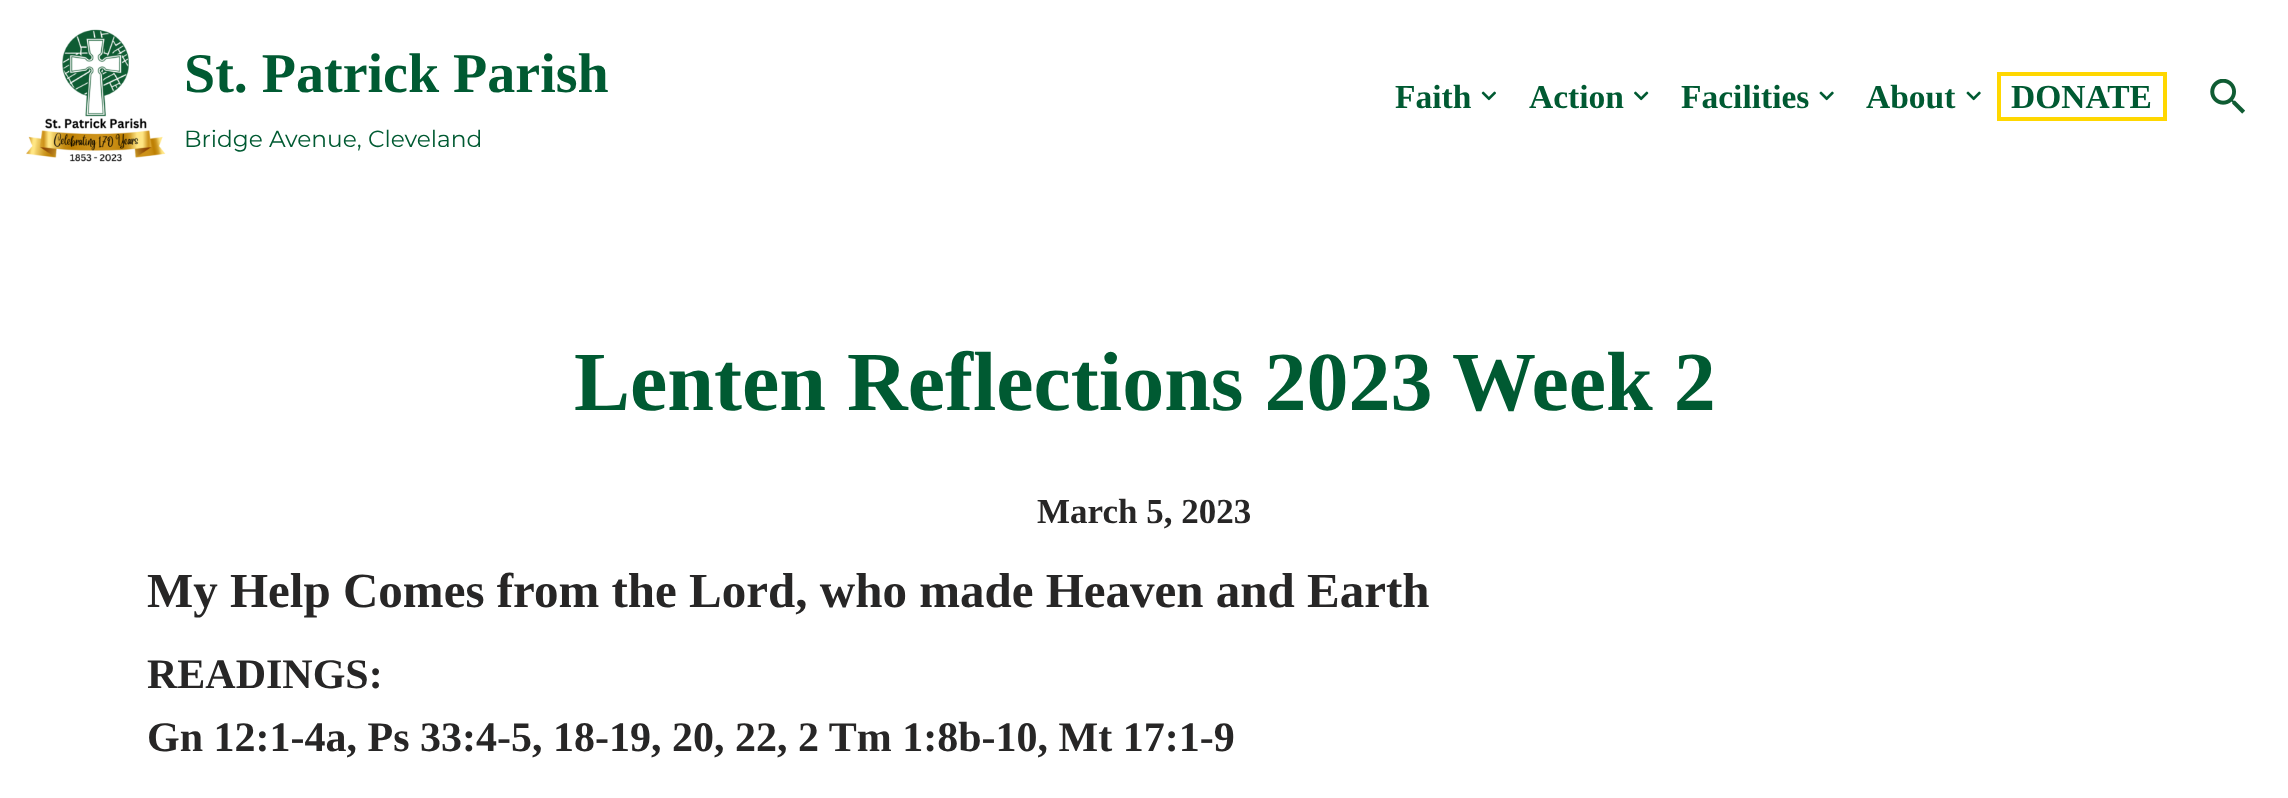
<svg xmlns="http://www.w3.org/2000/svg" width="2288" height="798">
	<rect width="100%" height="100%" fill="#FFFFFF" />
	<image x="26" y="29" width="140" height="133" href="assets/img1.png" />
	<text x="184" y="92" font-family="Liberation Serif" font-size="56" font-weight="700" fill="#005A32">St. Patrick Parish</text>
	<text x="184" y="147" font-family="Montserrat" font-size="23.3" fill="#005A32">Bridge Avenue, Cleveland</text>
	<text x="1395" y="108" font-family="Liberation Serif" font-size="33.5" font-weight="700" fill="#005A32">Faith</text>
	<image x="1481" y="91" width="15" height="10" href="assets/img2.png" />
	<text x="1529" y="108" font-family="Liberation Serif" font-size="33.5" font-weight="700" fill="#005A32">Action</text>
	<image x="1634" y="91" width="15" height="10" href="assets/img3.png" />
	<text x="1681" y="108" font-family="Liberation Serif" font-size="33.5" font-weight="700" fill="#005A32">Facilities</text>
	<image x="1819" y="91" width="15" height="10" href="assets/img4.png" />
	<text x="1866" y="108" font-family="Liberation Serif" font-size="33.5" font-weight="700" fill="#005A32">About</text>
	<image x="1966" y="91" width="15" height="10" href="assets/img4.png" />
	<rect x="1999" y="74" width="166" height="45" fill="none" stroke="#FFD700" stroke-width="4" />
	<text x="2011" y="108" font-family="Liberation Serif" font-size="33.5" font-weight="700" fill="#005A32">DONATE</text>
	<image x="2210" y="79" width="35" height="35" href="assets/img5.png" />
	<text x="574" y="410" font-family="Liberation Serif" font-size="84" font-weight="700" fill="#005A32">Lenten Reflections 2023 Week 2</text>
	<text x="1037" y="523" font-family="Liberation Serif" font-size="35" font-weight="700" fill="#272626">March 5, 2023</text>
	<text x="147" y="607" font-family="Liberation Serif" font-size="49" font-weight="700" fill="#272626">My Help Comes from the Lord, who made Heaven and Earth</text>
	<g font-family="Liberation Serif" font-size="42" font-weight="700" fill="#272626">
		<text x="147" y="688">READINGS:</text>
		<text x="147" y="751">Gn 12:1-4a, Ps 33:4-5, 18-19, 20, 22, 2 Tm 1:8b-10, Mt 17:1-9</text>
	</g>
</svg>
